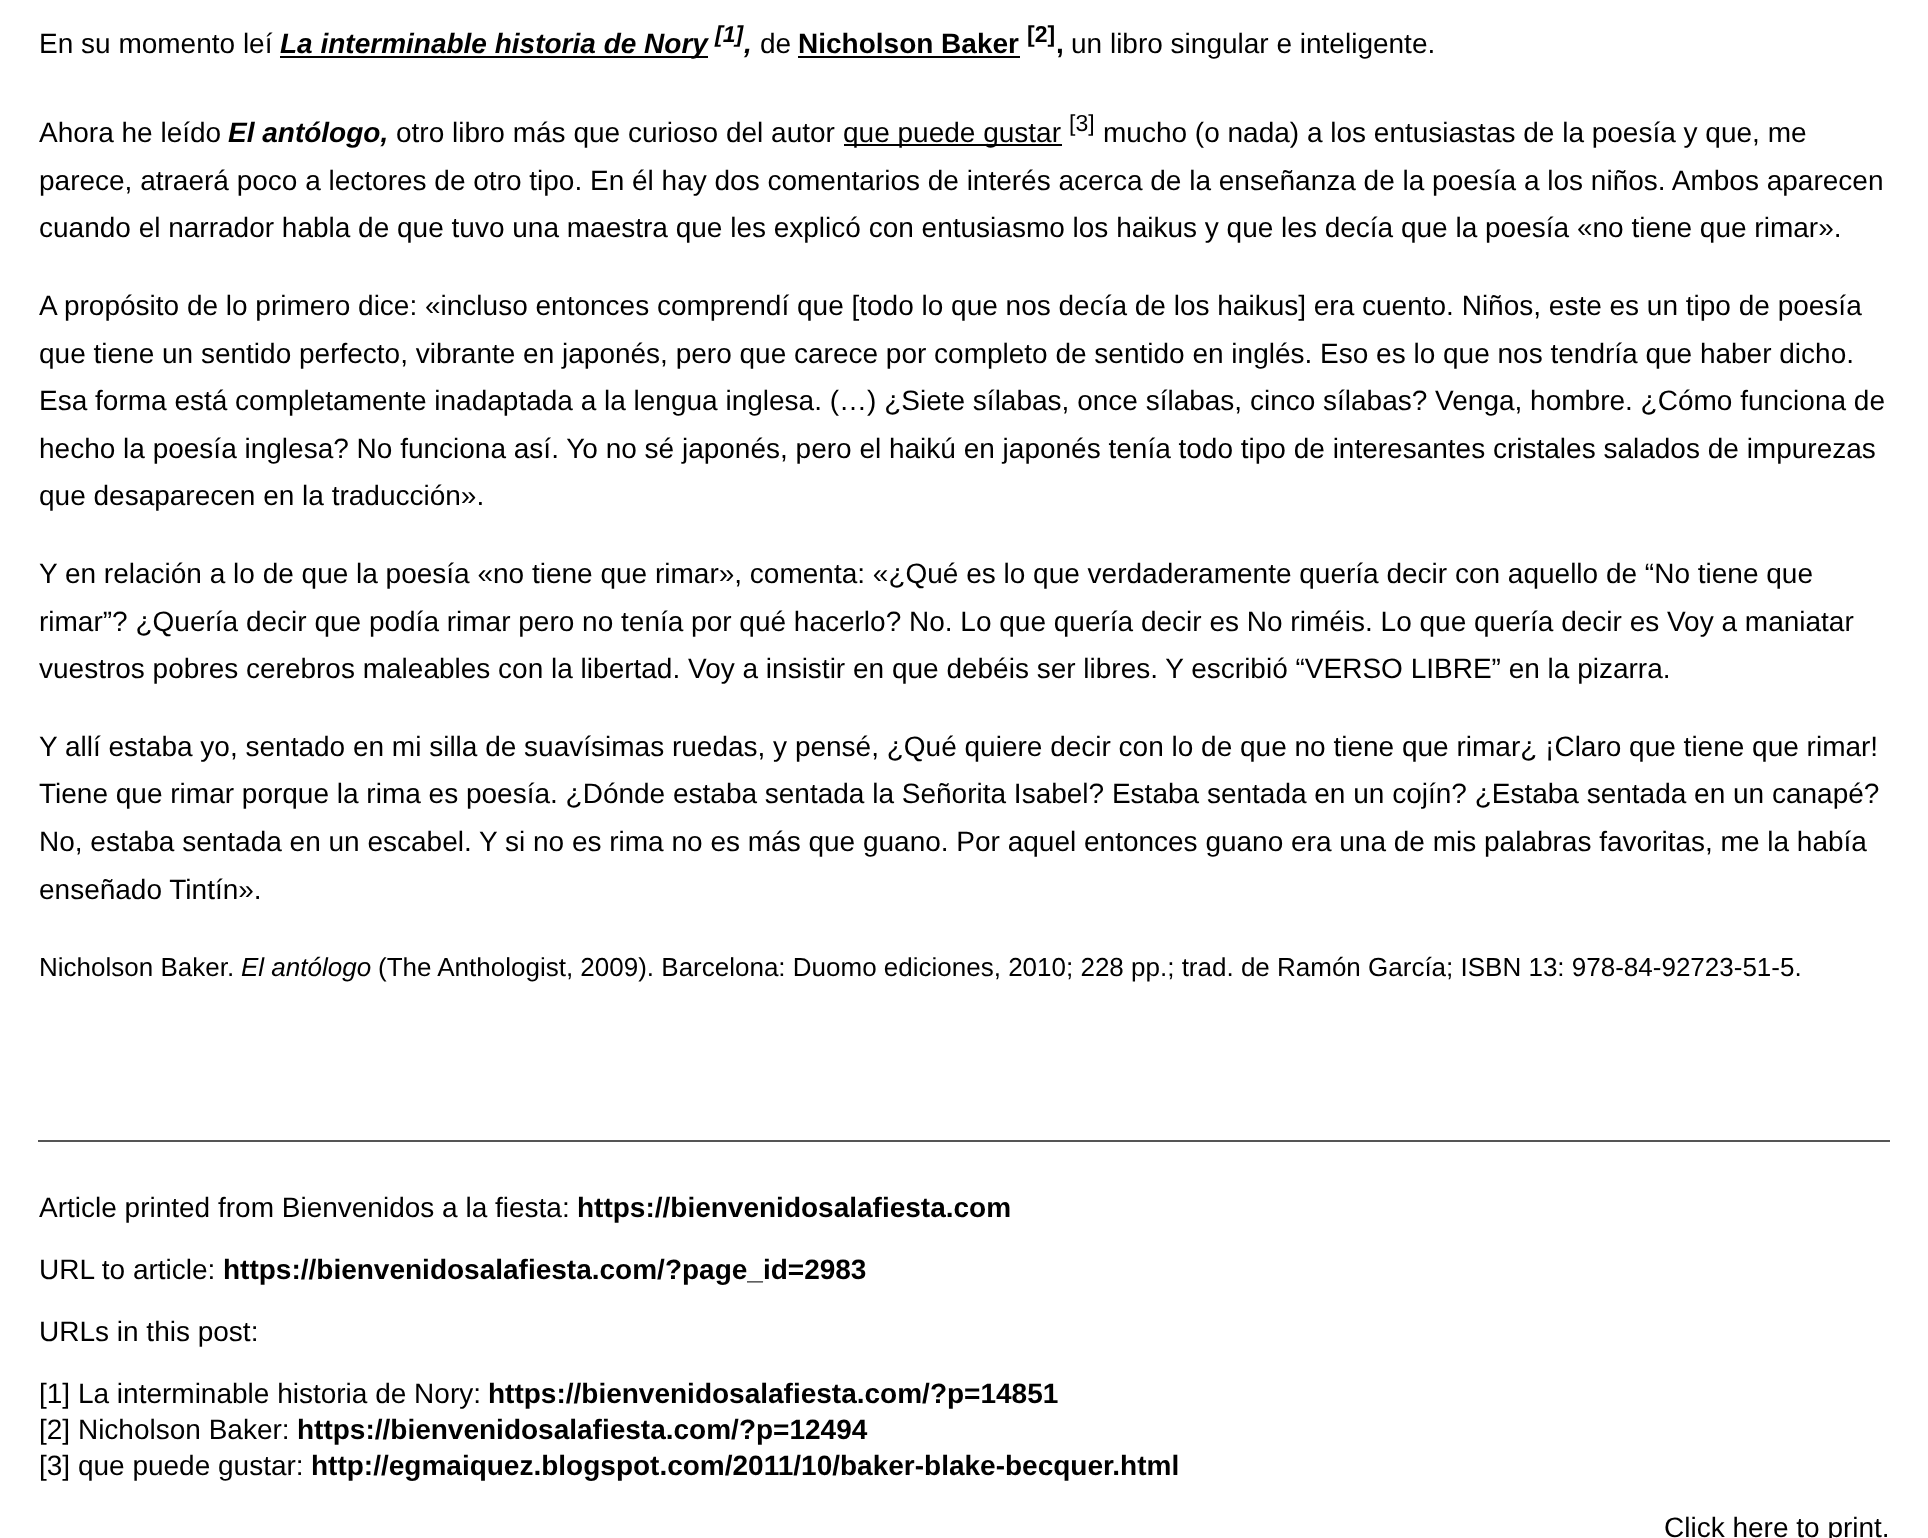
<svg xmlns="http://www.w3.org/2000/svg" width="1928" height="1538">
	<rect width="100%" height="100%" fill="#FFFFFF" />
	<text x="39" y="53" font-family="Liberation Sans" font-size="28" fill="#000000">En su momento leí</text>
	<rect x="280" y="56" width="428" height="2" fill="#000000" />
	<text x="280" y="53" font-family="Liberation Sans" font-size="28" font-weight="700" font-style="italic" fill="#000000">La interminable historia de Nory</text>
	<text x="715" y="42" font-family="Liberation Sans" font-size="23" font-weight="700" font-style="italic" fill="#000000">[1]</text>
	<text x="744" y="53" font-family="Liberation Sans" font-size="28" font-weight="700" font-style="italic" fill="#000000">,</text>
	<text x="760" y="53" font-family="Liberation Sans" font-size="28" fill="#000000">de</text>
	<text x="798" y="53" font-family="Liberation Sans" font-size="28" font-weight="700" fill="#000000">Nicholson Baker</text>
	<rect x="798" y="56" width="222" height="2" fill="#000000" />
	<text x="1027" y="42" font-family="Liberation Sans" font-size="23" font-weight="700" fill="#000000">[2]</text>
	<text x="1056" y="53" font-family="Liberation Sans" font-size="28" font-weight="700" fill="#000000">,</text>
	<g font-family="Liberation Sans" font-size="28" fill="#000000">
		<text x="1071" y="53">un libro singular e inteligente.</text>
		<text x="39" y="142">Ahora he leído</text>
	</g>
	<text x="228" y="142" font-family="Liberation Sans" font-size="28" font-weight="700" font-style="italic" fill="#000000">El antólogo,</text>
	<text x="396" y="142" font-family="Liberation Sans" font-size="28" fill="#000000">otro libro más que curioso del autor</text>
	<rect x="844" y="144" width="218" height="2" fill="#000000" />
	<text x="843" y="142" font-family="Liberation Sans" font-size="28" fill="#000000">que puede gustar</text>
	<text x="1069" y="131" font-family="Liberation Sans" font-size="23" fill="#000000">[3]</text>
	<g font-family="Liberation Sans" font-size="28" fill="#000000">
		<text x="1103" y="142">mucho (o nada) a los entusiastas de la poesía y que, me</text>
		<text x="39" y="190">parece, atraerá poco a lectores de otro tipo. En él hay dos comentarios de interés acerca de la enseñanza de la poesía a los niños. Ambos aparecen</text>
		<text x="39" y="237">cuando el narrador habla de que tuvo una maestra que les explicó con entusiasmo los haikus y que les decía que la poesía «no tiene que rimar».</text>
		<text x="39" y="315">A propósito de lo primero dice: «incluso entonces comprendí que [todo lo que nos decía de los haikus] era cuento. Niños, este es un tipo de poesía</text>
		<text x="39" y="363">que tiene un sentido perfecto, vibrante en japonés, pero que carece por completo de sentido en inglés. Eso es lo que nos tendría que haber dicho.</text>
		<text x="39" y="410">Esa forma está completamente inadaptada a la lengua inglesa. (…) ¿Siete sílabas, once sílabas, cinco sílabas? Venga, hombre. ¿Cómo funciona de</text>
		<text x="39" y="458">hecho la poesía inglesa? No funciona así. Yo no sé japonés, pero el haikú en japonés tenía todo tipo de interesantes cristales salados de impurezas</text>
		<text x="39" y="505">que desaparecen en la traducción».</text>
		<text x="39" y="583">Y en relación a lo de que la poesía «no tiene que rimar», comenta: «¿Qué es lo que verdaderamente quería decir con aquello de “No tiene que</text>
		<text x="39" y="631">rimar”? ¿Quería decir que podía rimar pero no tenía por qué hacerlo? No. Lo que quería decir es No riméis. Lo que quería decir es Voy a maniatar</text>
		<text x="39" y="678">vuestros pobres cerebros maleables con la libertad. Voy a insistir en que debéis ser libres. Y escribió “VERSO LIBRE” en la pizarra.</text>
		<text x="39" y="756">Y allí estaba yo, sentado en mi silla de suavísimas ruedas, y pensé, ¿Qué quiere decir con lo de que no tiene que rimar¿ ¡Claro que tiene que rimar!</text>
		<text x="39" y="803">Tiene que rimar porque la rima es poesía. ¿Dónde estaba sentada la Señorita Isabel? Estaba sentada en un cojín? ¿Estaba sentada en un canapé?</text>
		<text x="39" y="851">No, estaba sentada en un escabel. Y si no es rima no es más que guano. Por aquel entonces guano era una de mis palabras favoritas, me la había</text>
		<text x="39" y="899">enseñado Tintín».</text>
	</g>
	<text x="39" y="976" font-family="Liberation Sans" font-size="26" fill="#000000">Nicholson Baker.</text>
	<text x="241" y="976" font-family="Liberation Sans" font-size="26" font-style="italic" fill="#000000">El antólogo</text>
	<text x="378" y="976" font-family="Liberation Sans" font-size="26" fill="#000000">(The Anthologist, 2009). Barcelona: Duomo ediciones, 2010; 228 pp.; trad. de Ramón García; ISBN 13: 978-84-92723-51-5.</text>
	<rect x="38" y="1140" width="1852" height="2" fill="#555555" />
	<text x="39" y="1217" font-family="Liberation Sans" font-size="28" fill="#000000">Article printed from Bienvenidos a la fiesta:</text>
	<text x="577" y="1217" font-family="Liberation Sans" font-size="28" font-weight="700" fill="#000000">https://bienvenidosalafiesta.com</text>
	<text x="39" y="1279" font-family="Liberation Sans" font-size="28" fill="#000000">URL to article:</text>
	<text x="223" y="1279" font-family="Liberation Sans" font-size="28" font-weight="700" fill="#000000">https://bienvenidosalafiesta.com/?page_id=2983</text>
	<g font-family="Liberation Sans" font-size="28" fill="#000000">
		<text x="39" y="1341">URLs in this post:</text>
		<text x="39" y="1403">[1] La interminable historia de Nory:</text>
	</g>
	<text x="488" y="1403" font-family="Liberation Sans" font-size="28" font-weight="700" fill="#000000">https://bienvenidosalafiesta.com/?p=14851</text>
	<text x="39" y="1439" font-family="Liberation Sans" font-size="28" fill="#000000">[2] Nicholson Baker:</text>
	<text x="297" y="1439" font-family="Liberation Sans" font-size="28" font-weight="700" fill="#000000">https://bienvenidosalafiesta.com/?p=12494</text>
	<text x="39" y="1475" font-family="Liberation Sans" font-size="28" fill="#000000">[3] que puede gustar:</text>
	<text x="311" y="1475" font-family="Liberation Sans" font-size="28" font-weight="700" fill="#000000">http://egmaiquez.blogspot.com/2011/10/baker-blake-becquer.html</text>
	<text x="1664" y="1537" font-family="Liberation Sans" font-size="28" fill="#000000">Click here to print.</text>
</svg>
